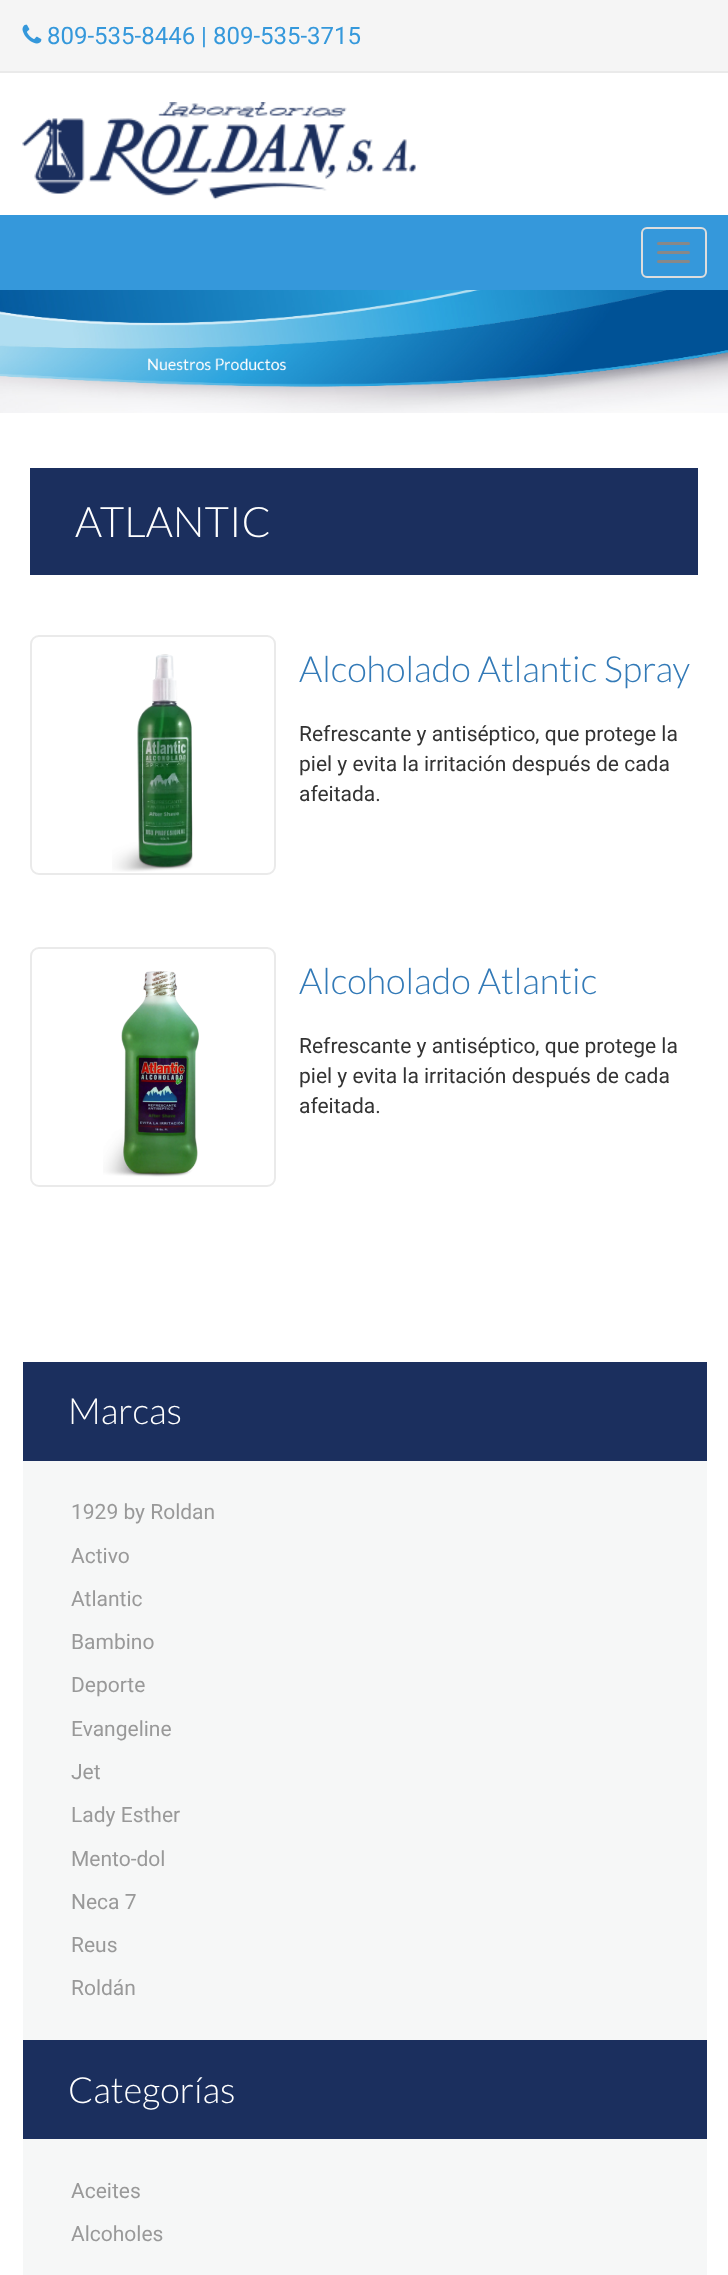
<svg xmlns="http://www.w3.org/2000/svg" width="728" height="2275">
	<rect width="100%" height="100%" fill="#FFFFFF" />
	<rect x="0" y="0" width="728" height="71" fill="#F5F5F5" />
	<rect x="0" y="71" width="728" height="2" fill="#EAEAEA" />
	<image x="22" y="24" width="20" height="20" href="assets/img1.png" />
	<text x="47" y="44" font-family="Roboto" font-size="24" fill="#3598DB">809-535-8446 | 809-535-3715</text>
	<image x="22" y="102" width="394" height="98" href="assets/img2.png" />
	<rect x="0" y="215" width="728" height="75" fill="#3598DB" />
	<rect x="642" y="228" width="64" height="49" rx="5" fill="none" stroke="#DDDDDD" stroke-width="2" />
	<rect x="657" y="242" width="33" height="3" rx="1.5" fill="#888888" />
	<rect x="657" y="251" width="33" height="3" rx="1.5" fill="#888888" />
	<rect x="657" y="260" width="33" height="3" rx="1.5" fill="#888888" />
	<image x="0" y="290" width="728" height="123" href="assets/img3.png" />
	<rect x="30" y="468" width="668" height="107" fill="#1B2F5E" />
	<text x="75" y="537" font-family="Lato" font-size="42" font-weight="300" fill="#FFFFFF">ATLANTIC</text>
	<rect x="31" y="636" width="244" height="238" rx="8" fill="none" stroke="#EAEAEA" stroke-width="2" />
	<image x="112" y="654" width="81" height="218" href="assets/img4.png" />
	<text x="299" y="682" font-family="Lato" font-size="36" font-weight="300" fill="#337AB7">Alcoholado Atlantic Spray</text>
	<g font-family="Roboto" font-size="21" fill="#333333">
		<text x="299" y="741">Refrescante y antiséptico, que protege la</text>
		<text x="299" y="771">piel y evita la irritación después de cada</text>
		<text x="299" y="801">afeitada.</text>
	</g>
	<rect x="31" y="948" width="244" height="238" rx="8" fill="none" stroke="#EAEAEA" stroke-width="2" />
	<image x="103" y="971" width="96" height="206" href="assets/img5.png" />
	<text x="299" y="994" font-family="Lato" font-size="36" font-weight="300" fill="#337AB7">Alcoholado Atlantic</text>
	<g font-family="Roboto" font-size="21" fill="#333333">
		<text x="299" y="1053">Refrescante y antiséptico, que protege la</text>
		<text x="299" y="1083">piel y evita la irritación después de cada</text>
		<text x="299" y="1113">afeitada.</text>
	</g>
	<rect x="23" y="1362" width="684" height="99" fill="#1B2F5E" />
	<text x="68" y="1424" font-family="Lato" font-size="36" font-weight="300" fill="#FFFFFF">Marcas</text>
	<rect x="23" y="1461" width="684" height="579" fill="#F6F7F7" />
	<g font-family="Roboto" font-size="21" fill="#999999">
		<text x="71" y="1519">1929 by Roldan</text>
		<text x="71" y="1563">Activo</text>
		<text x="71" y="1606">Atlantic</text>
		<text x="71" y="1649">Bambino</text>
		<text x="71" y="1692">Deporte</text>
		<text x="71" y="1736">Evangeline</text>
		<text x="71" y="1779">Jet</text>
		<text x="71" y="1822">Lady Esther</text>
		<text x="71" y="1866">Mento-dol</text>
		<text x="71" y="1909">Neca 7</text>
		<text x="71" y="1952">Reus</text>
		<text x="71" y="1995">Roldán</text>
	</g>
	<rect x="23" y="2040" width="684" height="99" fill="#1B2F5E" />
	<text x="68" y="2103" font-family="Lato" font-size="36" font-weight="300" fill="#FFFFFF">Categorías</text>
	<rect x="23" y="2139" width="684" height="136" fill="#F6F7F7" />
	<g font-family="Roboto" font-size="21" fill="#999999">
		<text x="71" y="2198">Aceites</text>
		<text x="71" y="2241">Alcoholes</text>
	</g>
</svg>
